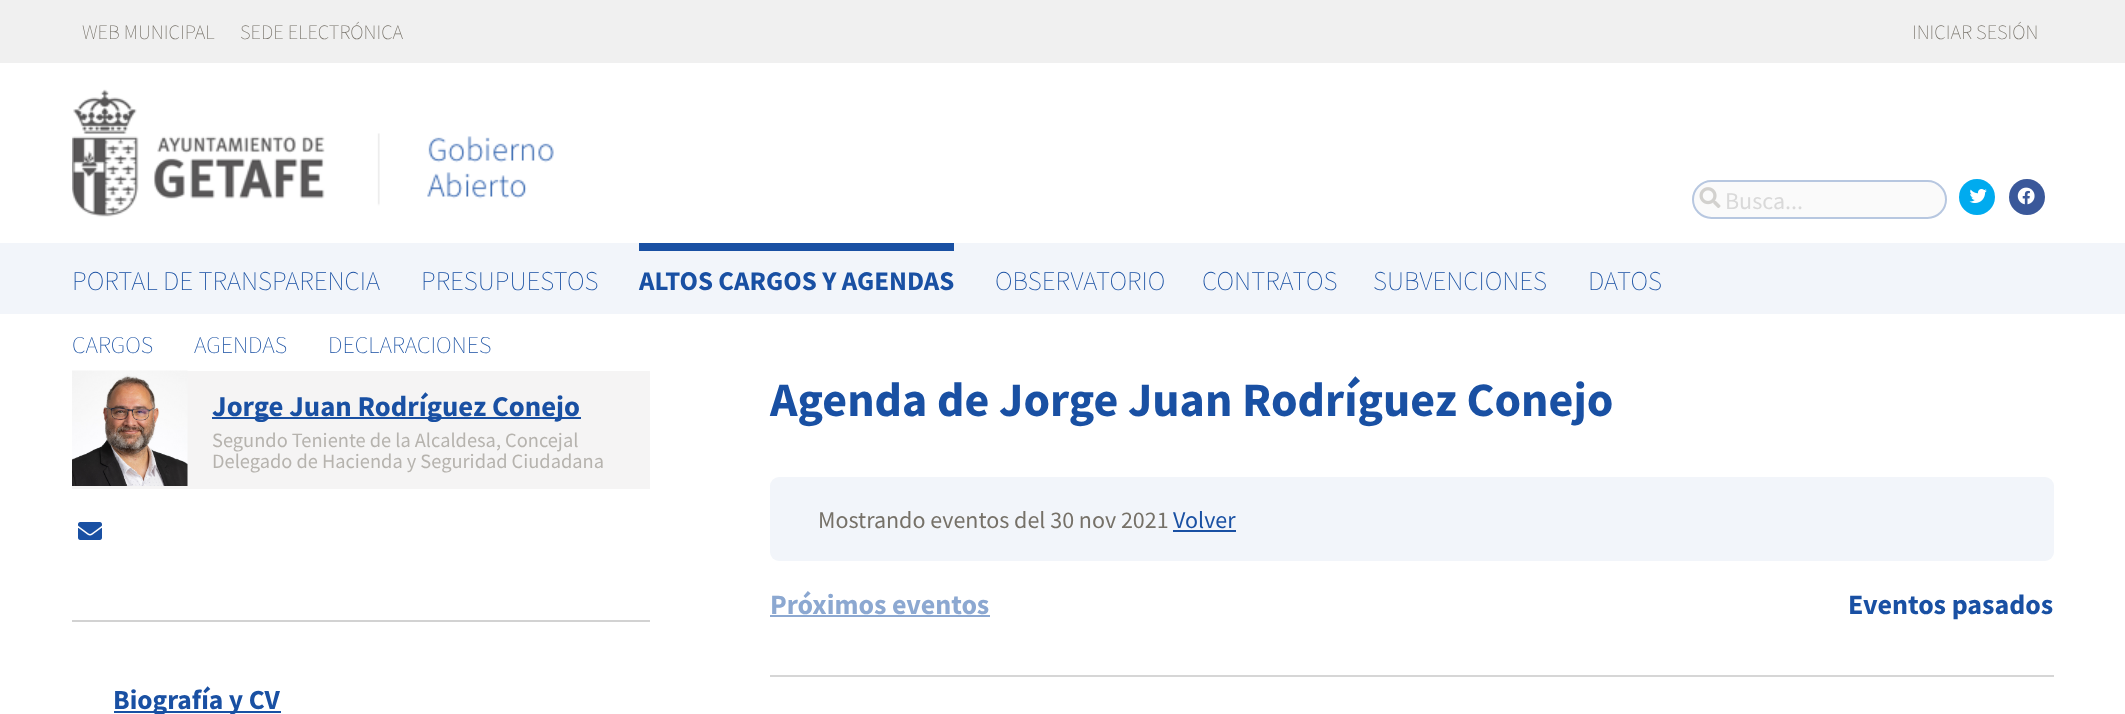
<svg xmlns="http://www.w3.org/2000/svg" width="2125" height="714">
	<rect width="100%" height="100%" fill="#FFFFFF" />
	<rect x="0" y="0" width="2125" height="63" fill="#F0F0F0" />
	<g font-family="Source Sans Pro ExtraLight" font-size="20.4" font-weight="200" fill="#767168">
		<text x="82" y="39">WEB MUNICIPAL</text>
		<text x="240" y="39">SEDE ELECTRÓNICA</text>
		<text x="1912" y="39">INICIAR SESIÓN</text>
	</g>
	<image x="72" y="89" width="482" height="128" href="assets/img1.png" />
	<rect x="1693" y="181" width="253" height="37" rx="18.5" fill="#FAFAFA" stroke="#B7C7E0" stroke-width="2" />
	<image x="1699" y="187" width="22" height="21" href="assets/img2.png" />
	<text x="1725" y="209" font-family="Source Sans Pro" font-size="24" fill="#D9D9D9">Busca...</text>
	<circle cx="1977" cy="197" r="18" fill="#00ABEF" />
	<image x="1969" y="189" width="18" height="14" href="assets/img3.png" />
	<circle cx="2027" cy="197" r="18" fill="#3A589A" />
	<image x="2017" y="187" width="18" height="18" href="assets/img4.png" />
	<rect x="0" y="243" width="2125" height="71" fill="#F2F5FA" />
	<g font-family="Source Sans Pro ExtraLight" font-size="27" font-weight="200" fill="#1950A3">
		<text x="72" y="290">PORTAL DE TRANSPARENCIA</text>
		<text x="421" y="290">PRESUPUESTOS</text>
	</g>
	<rect x="639" y="243" width="315" height="8" fill="#1950A3" />
	<text x="639" y="290" font-family="Source Sans Pro" font-size="27" font-weight="700" fill="#1950A3">ALTOS CARGOS Y AGENDAS</text>
	<g font-family="Source Sans Pro ExtraLight" font-size="27" font-weight="200" fill="#1950A3">
		<text x="995" y="290">OBSERVATORIO</text>
		<text x="1202" y="290">CONTRATOS</text>
		<text x="1373" y="290">SUBVENCIONES</text>
		<text x="1588" y="290">DATOS</text>
	</g>
	<g font-family="Source Sans Pro ExtraLight" font-size="24" font-weight="200" fill="#1950A3">
		<text x="72" y="353">CARGOS</text>
		<text x="194" y="353">AGENDAS</text>
		<text x="328" y="353">DECLARACIONES</text>
	</g>
	<rect x="72" y="371" width="578" height="118" fill="#F5F4F4" />
	<image x="72" y="370" width="116" height="116" href="assets/img5.png" />
	<rect x="212" y="417" width="369" height="2" fill="#1950A3" />
	<text x="212" y="416" font-family="Source Sans Pro" font-size="28.75" font-weight="700" fill="#1950A3">Jorge Juan Rodríguez Conejo</text>
	<g font-family="Source Sans Pro" font-size="20.4" fill="#B6B3AE">
		<text x="212" y="447">Segundo Teniente de la Alcaldesa, Concejal</text>
		<text x="212" y="468">Delegado de Hacienda y Seguridad Ciudadana</text>
	</g>
	<image x="78" y="522" width="24" height="18" href="assets/img6.png" />
	<rect x="72" y="620" width="578" height="2" fill="#D2D2D2" />
	<rect x="114" y="711" width="167" height="2" fill="#1950A3" />
	<text x="113" y="709" font-family="Source Sans Pro" font-size="27.5" font-weight="700" fill="#1950A3">Biografía y CV</text>
	<text x="770" y="416" font-family="Source Sans Pro" font-size="48" font-weight="700" fill="#1950A3">Agenda de Jorge Juan Rodríguez Conejo</text>
	<rect x="770" y="477" width="1284" height="84" rx="9" fill="#F2F5FA" />
	<text x="818" y="528" font-family="Source Sans Pro" font-size="24" fill="#767168">Mostrando eventos del 30 nov 2021</text>
	<text x="1173" y="528" font-family="Source Sans Pro" font-size="24" fill="#1950A3">Volver</text>
	<rect x="1173" y="530" width="63" height="2" fill="#1950A3" />
	<text x="770" y="614" font-family="Source Sans Pro" font-size="28" font-weight="700" fill="#8CA8D1">Próximos eventos</text>
	<rect x="770" y="615" width="220" height="2" fill="#8CA8D1" />
	<text x="1848" y="614" font-family="Source Sans Pro" font-size="28" font-weight="700" fill="#1950A3">Eventos pasados</text>
	<rect x="770" y="675" width="1284" height="2" fill="#D6D6D6" />
</svg>
